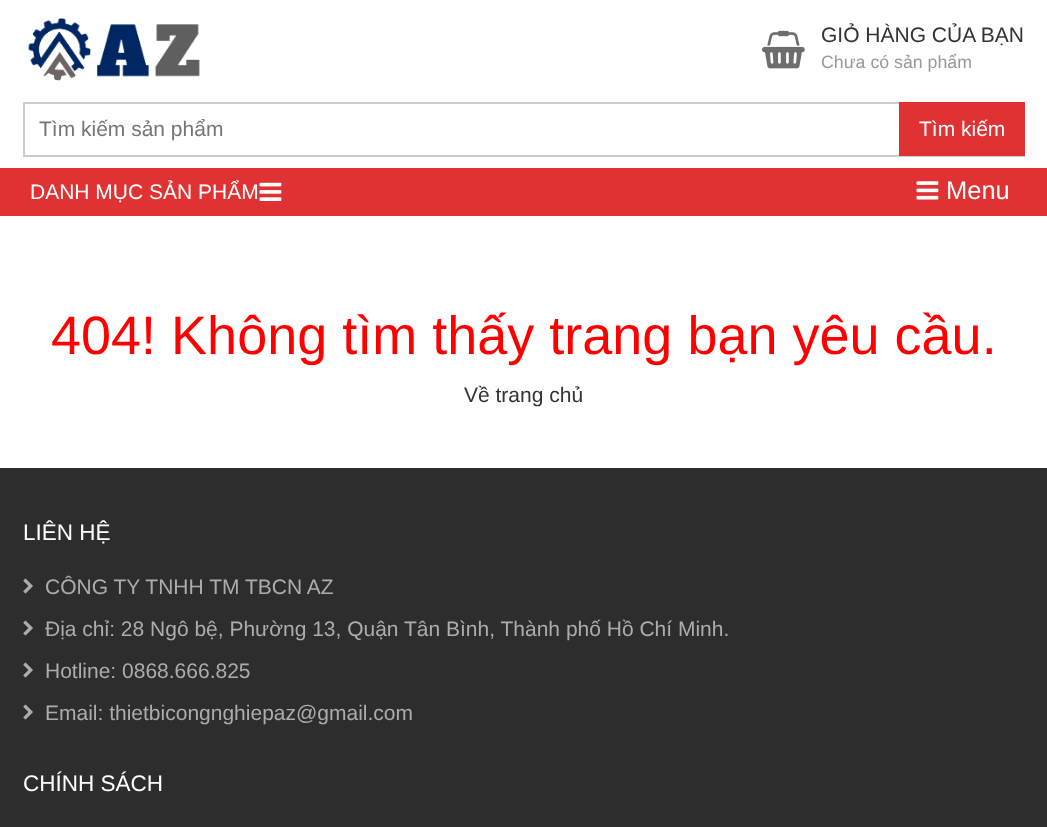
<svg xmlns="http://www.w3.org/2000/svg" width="1047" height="827">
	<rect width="100%" height="100%" fill="#FFFFFF" />
	<image x="28" y="18" width="172" height="63" href="assets/img1.png" />
	<image x="762" y="30" width="43" height="39" href="assets/img2.png" />
	<text x="821" y="42" font-family="Liberation Sans" font-size="21" fill="#333333">GIỎ HÀNG CỦA BẠN</text>
	<text x="821" y="68" font-family="Liberation Sans" font-size="17.75" fill="#999999">Chưa có sản phẩm</text>
	<rect x="23" y="102" width="876" height="2" fill="#CCCCCC" />
	<rect x="23" y="155" width="1002" height="2" fill="#CCCCCC" />
	<rect x="23" y="102" width="2" height="54" fill="#CCCCCC" />
	<text x="39" y="136" font-family="Liberation Sans" font-size="21" fill="#757575">Tìm kiếm sản phẩm</text>
	<rect x="899" y="102" width="126" height="54" fill="#E03232" />
	<text x="919" y="136" font-family="Liberation Sans" font-size="21" fill="#FFFFFF">Tìm kiếm</text>
	<rect x="0" y="168" width="1047" height="48" fill="#E03232" />
	<text x="30" y="199" font-family="Liberation Sans" font-size="21" fill="#FFFFFF">DANH MỤC SẢN PHẨM</text>
	<image x="259" y="182" width="23" height="19" href="assets/img3.png" />
	<image x="916" y="181" width="23" height="19" href="assets/img4.png" />
	<text x="946" y="199" font-family="Liberation Sans" font-size="25.5" fill="#FFFFFF">Menu</text>
	<text x="51" y="354" font-family="Liberation Sans" font-size="54" fill="#FF0000">404! Không tìm thấy trang bạn yêu cầu.</text>
	<text x="464" y="402" font-family="Liberation Sans" font-size="21" fill="#333333">Về trang chủ</text>
	<rect x="0" y="468" width="1047" height="359" fill="#2D2D2D" />
	<text x="23" y="540" font-family="Liberation Sans" font-size="22.5" fill="#FFFFFF">LIÊN HỆ</text>
	<image x="23" y="578" width="10" height="16" href="assets/img5.png" />
	<text x="45" y="594" font-family="Liberation Sans" font-size="21" fill="#ACACAC">CÔNG TY TNHH TM TBCN AZ</text>
	<image x="23" y="620" width="10" height="16" href="assets/img5.png" />
	<text x="45" y="636" font-family="Liberation Sans" font-size="21" fill="#ACACAC">Địa chỉ: 28 Ngô bệ, Phường 13, Quận Tân Bình, Thành phố Hồ Chí Minh.</text>
	<image x="23" y="662" width="10" height="16" href="assets/img5.png" />
	<text x="45" y="678" font-family="Liberation Sans" font-size="21" fill="#ACACAC">Hotline: 0868.666.825</text>
	<image x="23" y="704" width="10" height="16" href="assets/img5.png" />
	<text x="45" y="720" font-family="Liberation Sans" font-size="21" fill="#ACACAC">Email: thietbicongnghiepaz@gmail.com</text>
	<text x="23" y="791" font-family="Liberation Sans" font-size="22.5" fill="#FFFFFF">CHÍNH SÁCH</text>
</svg>
